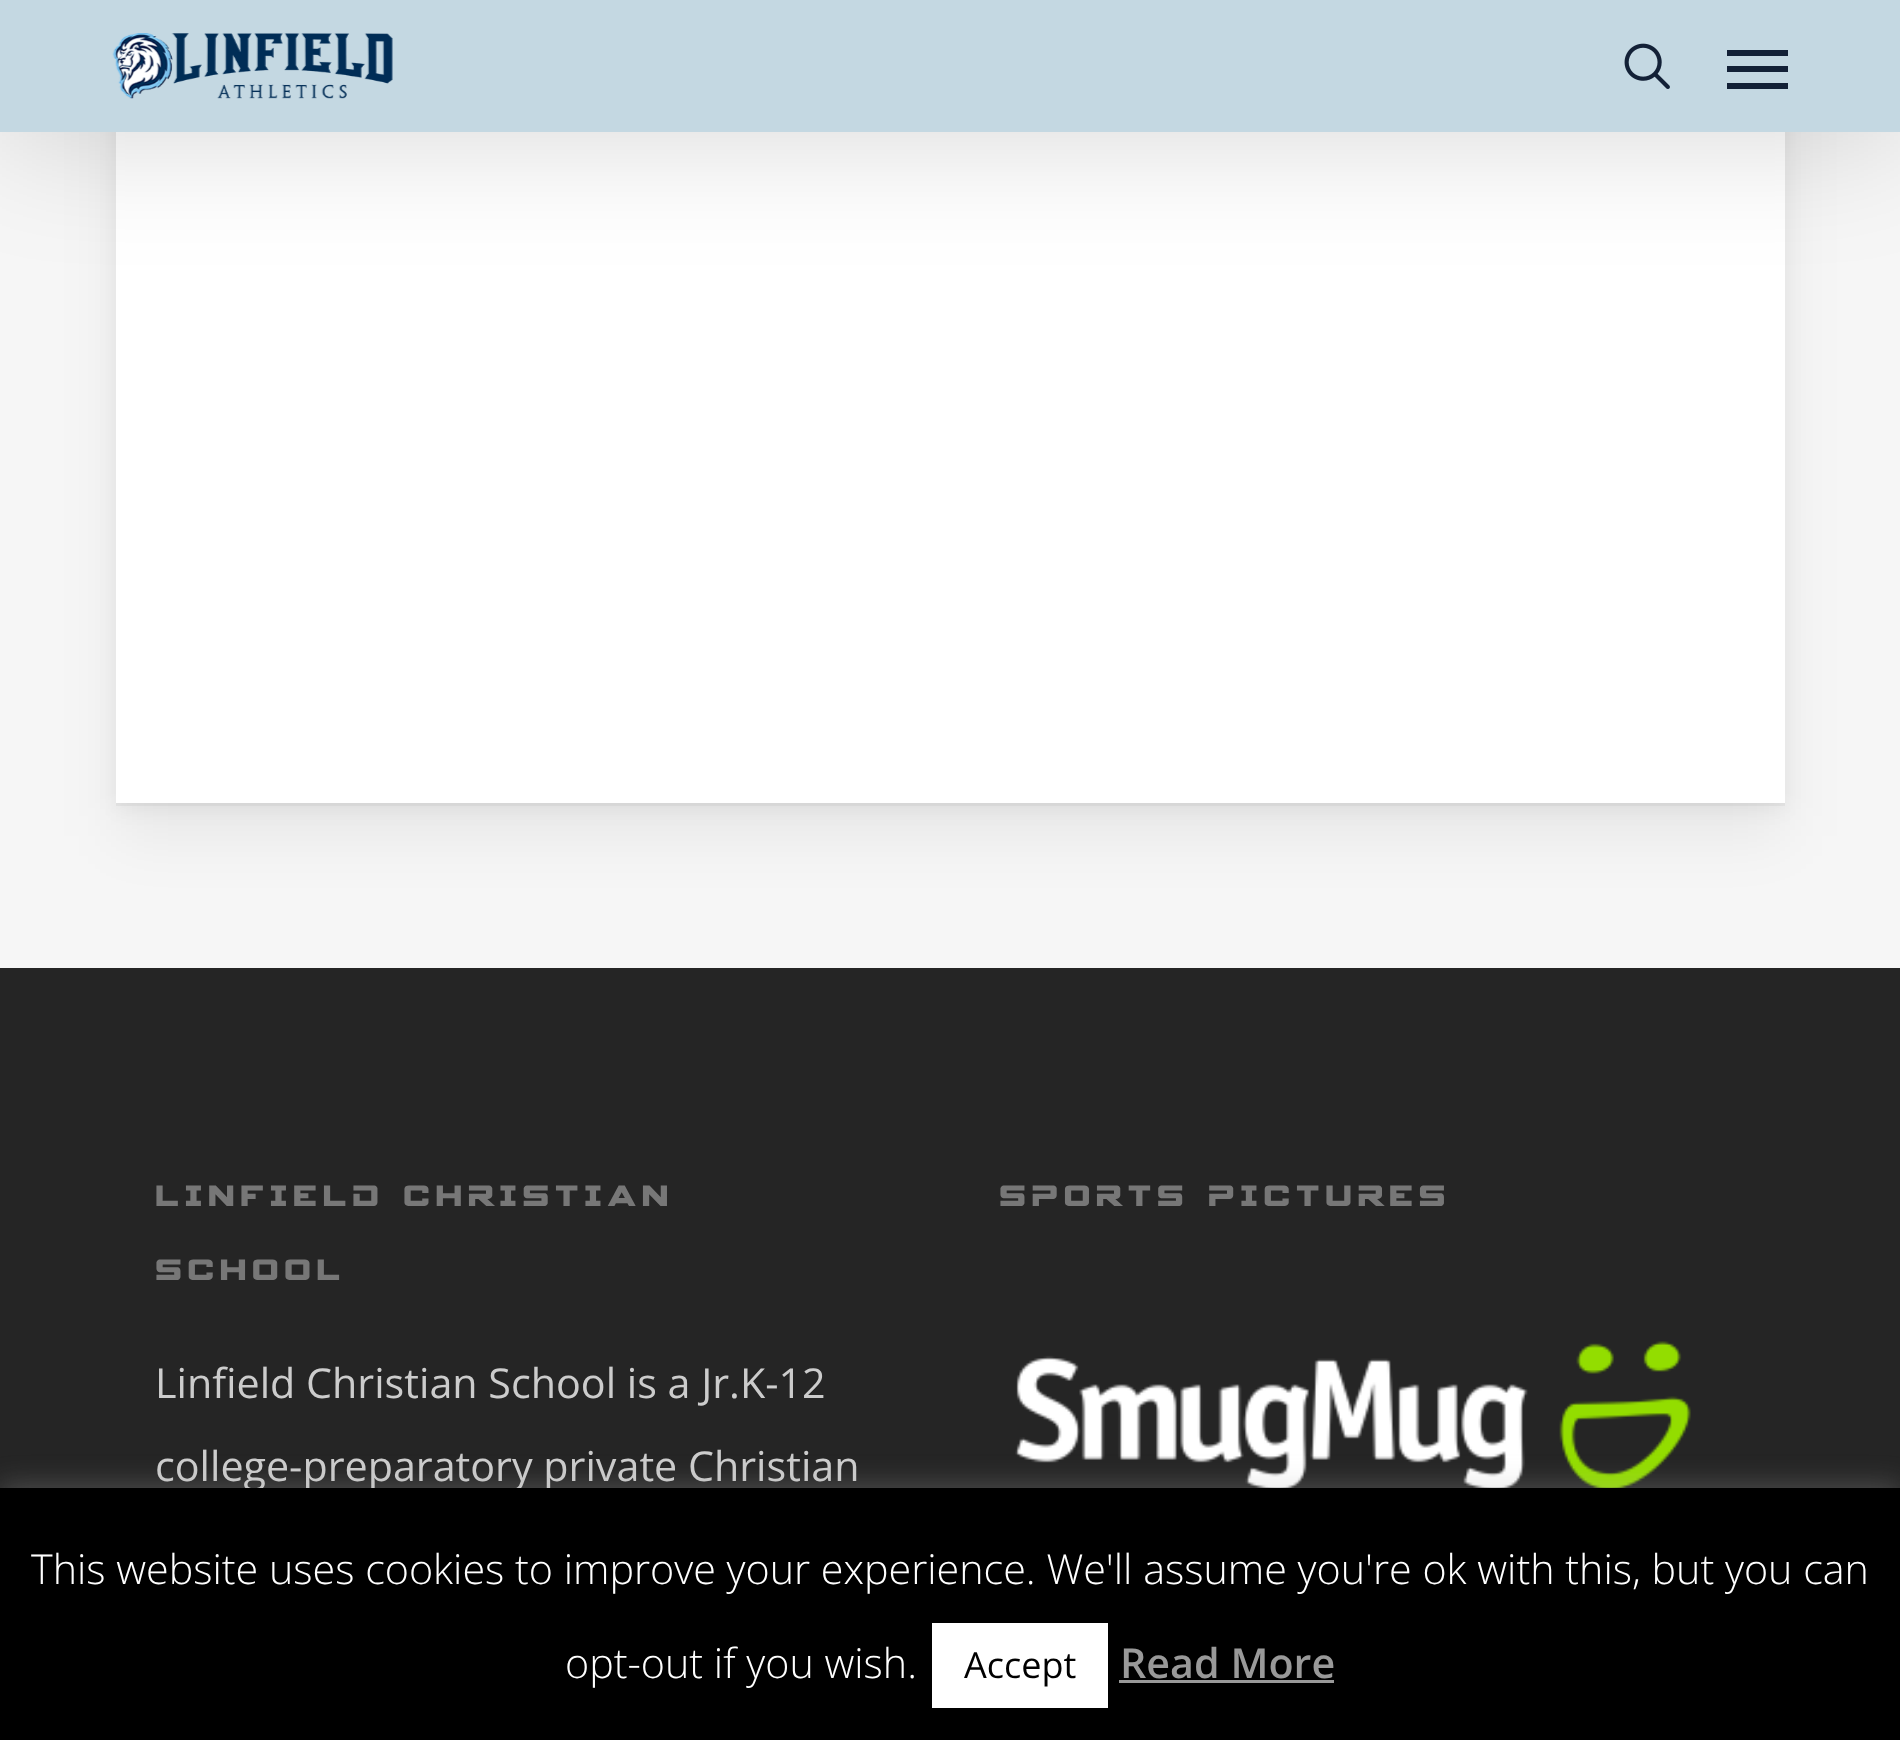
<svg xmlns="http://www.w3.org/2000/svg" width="1900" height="1740">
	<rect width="100%" height="100%" fill="#252525" />
	<rect x="0" y="132" width="1900" height="836" fill="#F6F6F6" />
	<rect x="116" y="-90" width="1669" height="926" fill="#000000" fill-opacity="0.06" filter="blur(30px)" />
	<rect x="116" y="-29" width="1669" height="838" fill="#000000" fill-opacity="0.05" filter="blur(9.5px)" />
	<rect x="116" y="132" width="1669" height="671" fill="#FFFFFF" />
	<rect x="0" y="-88" width="1900" height="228" fill="#000000" fill-opacity="0.15" filter="blur(62px)" />
	<rect x="0" y="0" width="1900" height="132" fill="#C4D8E2" />
	<image x="112" y="33" width="281" height="66" href="assets/img1.png" />
	<image x="1624" y="43" width="46" height="46" href="assets/img2.png" />
	<rect x="1727" y="50" width="61" height="6" fill="#132137" />
	<rect x="1727" y="83" width="61" height="6" fill="#132137" />
	<rect x="1727" y="66" width="61" height="6" fill="#132137" />
	<path d="M116 803V806H1785V-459V803Z" fill="#000000" fill-opacity="0.04" />
	<g font-family="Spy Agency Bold" font-size="33" font-weight="700" letter-spacing="5.5" fill="#777777">
		<text x="155" y="1206">LINFIELD CHRISTIAN</text>
		<text x="155" y="1280">SCHOOL</text>
	</g>
	<g font-family="Open Sans" font-size="41.25" fill="#CCCCCC">
		<text x="155" y="1398">Linfield Christian School is a Jr.K-12</text>
		<text x="155" y="1481">college-preparatory private Christian</text>
	</g>
	<text x="999" y="1206" font-family="Spy Agency Bold" font-size="33" font-weight="700" letter-spacing="5.5" fill="#777777">SPORTS PICTURES</text>
	<image x="1015" y="1341" width="676" height="147" href="assets/img3.png" />
	<rect x="0" y="1485" width="1900" height="253" fill="#ACABAB" fill-opacity="0.3" filter="blur(14px)" />
	<rect x="0" y="1488" width="1900" height="252" fill="#000000" />
	<g font-family="Open Sans" font-size="41.25" font-weight="300" fill="#FFFFFF">
		<text x="31" y="1584">This website uses cookies to improve your experience. We'll assume you're ok with this, but you can</text>
		<text x="565" y="1678">opt-out if you wish.</text>
	</g>
	<rect x="932" y="1623" width="176" height="85" fill="#FFFFFF" />
	<text x="964" y="1678" font-family="Open Sans" font-size="36" fill="#000000">Accept</text>
	<text x="1120" y="1678" font-family="Open Sans" font-size="41.25" font-weight="600" fill="#999999">Read More</text>
	<rect x="1119" y="1680" width="215" height="3" fill="#999999" />
</svg>
